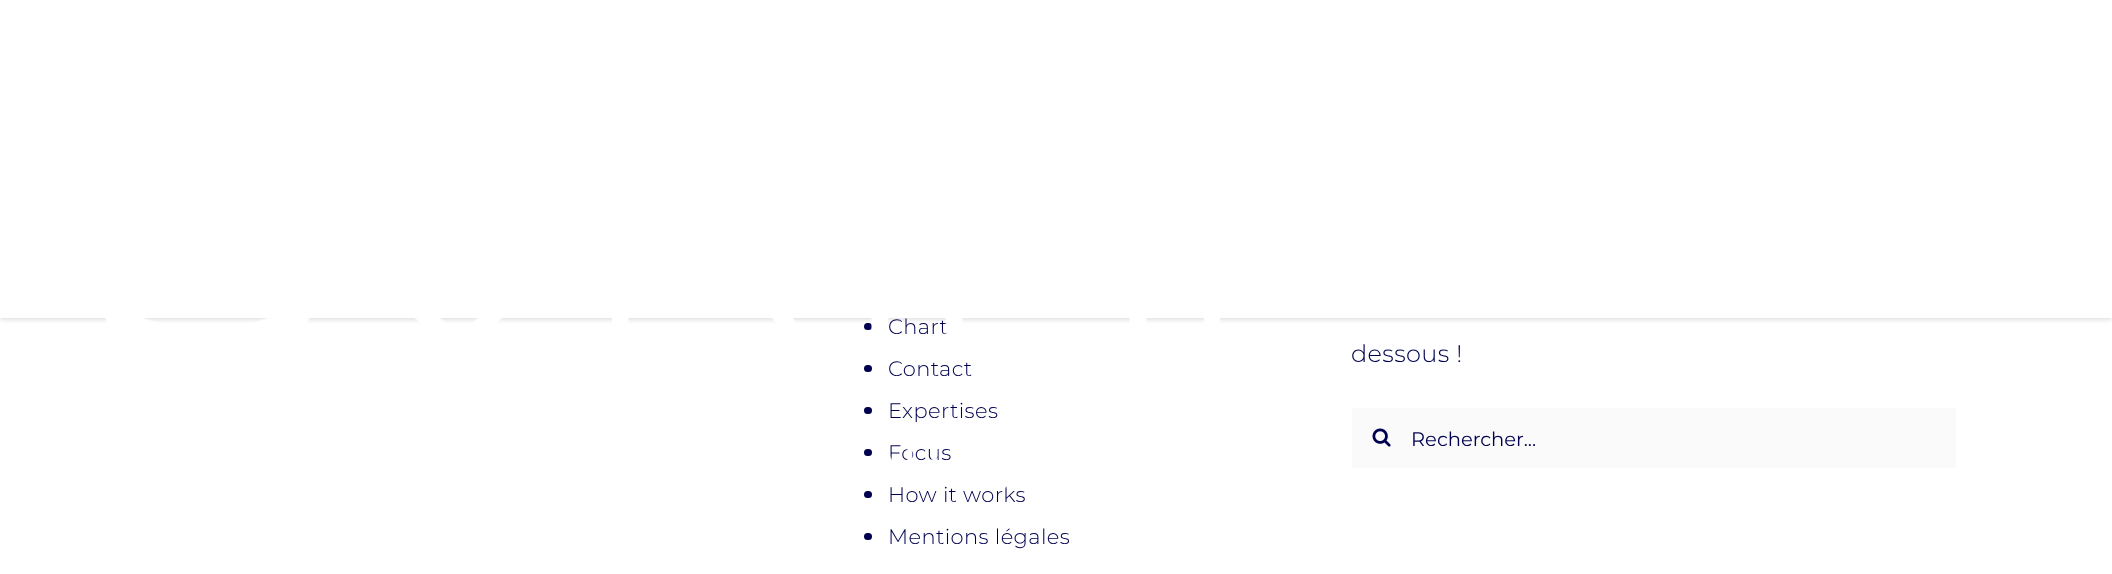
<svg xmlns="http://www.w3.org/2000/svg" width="2112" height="574">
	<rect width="100%" height="100%" fill="#FFFFFF" />
	<rect x="864" y="323" width="8" height="7" rx="3.5" fill="#000050" />
	<rect x="0" y="2" width="2112" height="318" fill="#000000" fill-opacity="0.12" filter="blur(2px)" />
	<rect x="0" y="0" width="2112" height="318" fill="#FFFFFF" />
	<text x="888" y="334" font-family="Montserrat" font-size="21" font-weight="300" letter-spacing="0.4" fill="#000050">Chart</text>
	<rect x="864" y="365" width="8" height="7" rx="3.5" fill="#000050" />
	<text x="888" y="376" font-family="Montserrat" font-size="21" font-weight="300" letter-spacing="0.4" fill="#000050">Contact</text>
	<rect x="864" y="407" width="8" height="7" rx="3.5" fill="#000050" />
	<text x="888" y="418" font-family="Montserrat" font-size="21" font-weight="300" letter-spacing="0.4" fill="#000050">Expertises</text>
	<rect x="864" y="449" width="8" height="7" rx="3.5" fill="#000050" />
	<g font-family="Montserrat" font-size="21" font-weight="300" letter-spacing="0.4" fill="#000050">
		<text x="888" y="460">Focus</text>
		<text x="888" y="502">How it works</text>
	</g>
	<image x="105" y="318" width="1116" height="171" href="assets/img1.png" />
	<rect x="864" y="491" width="8" height="7" rx="3.5" fill="#000050" />
	<rect x="864" y="533" width="8" height="7" rx="3.5" fill="#000050" />
	<text x="888" y="544" font-family="Montserrat" font-size="21" font-weight="300" letter-spacing="0.4" fill="#000050">Mentions légales</text>
	<text x="1351" y="362" font-family="Montserrat" font-size="24" font-weight="300" letter-spacing="0.4" fill="#000050">dessous !</text>
	<rect x="1352" y="408" width="604" height="60" fill="#FAFAFA" />
	<image x="1372" y="428" width="19" height="19" href="assets/img2.png" />
	<text x="1411" y="446" font-family="Montserrat" font-size="19.5" fill="#000050">Rechercher...</text>
</svg>
